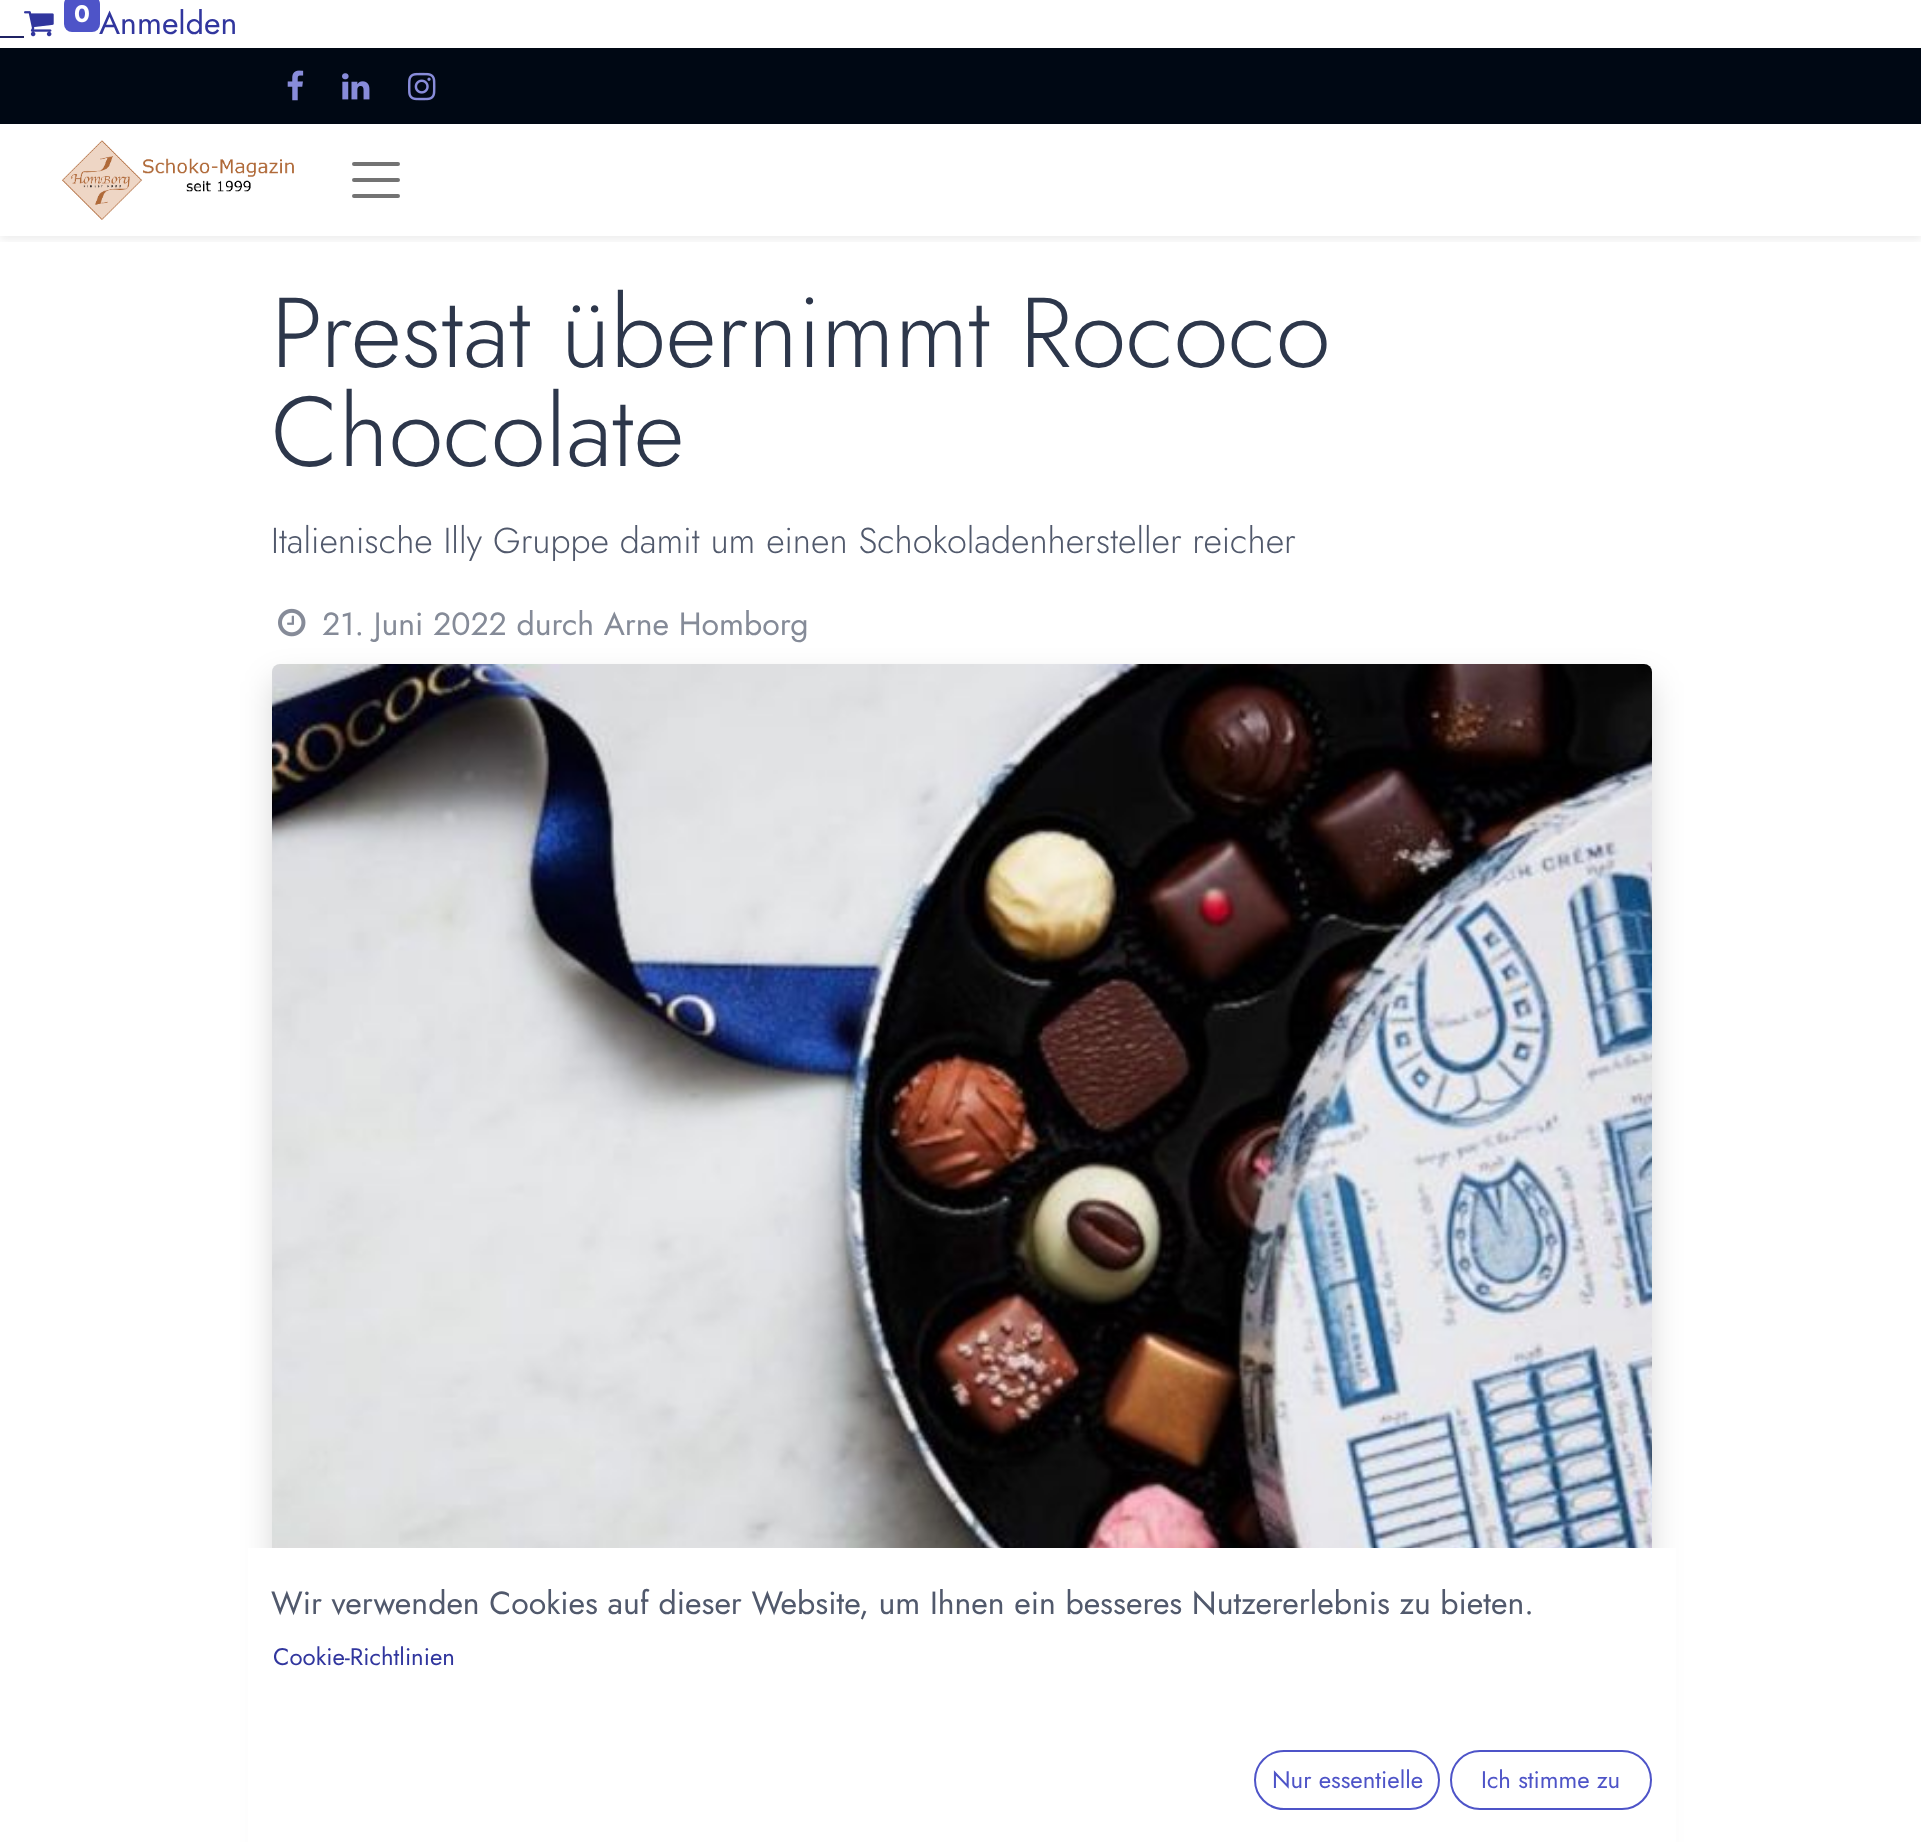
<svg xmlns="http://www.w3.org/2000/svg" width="1921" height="1842">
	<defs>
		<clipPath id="clip1"><rect x="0" y="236" width="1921" height="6" /></clipPath>
	</defs>
	<rect width="100%" height="100%" fill="#FFFFFF" />
	<image x="24" y="11" width="30" height="26" href="assets/img1.png" />
	<text x="99" y="34" font-family="Jost" font-size="32" fill="#31369E">Anmelden</text>
	<rect x="64" y="-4" width="36" height="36" rx="8" fill="#4E54C8" />
	<text x="74" y="22" font-family="Jost" font-size="24" font-weight="700" fill="#FFFFFF">0</text>
	<rect x="0" y="36" width="24" height="2" fill="#1F2263" />
	<rect x="0" y="48" width="1921" height="76" fill="#000814" />
	<image x="287" y="70" width="17" height="31" href="assets/img2.png" />
	<image x="342" y="73" width="28" height="27" href="assets/img3.png" />
	<image x="408" y="72" width="28" height="29" href="assets/img4.png" />
	<g clip-path="url(#clip1)">
		<rect x="0" y="128" width="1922" height="112" fill="#000000" fill-opacity="0.07" filter="blur(4px)" />
	</g>
	<image x="62" y="140" width="232" height="80" href="assets/img5.png" />
	<path d="M354 164H398M354 180H398M354 196H398" fill="none" stroke="#737373" stroke-width="4" stroke-linecap="round" />
	<g font-family="Jost" font-size="99" font-weight="300" fill="#2D374B">
		<text x="271" y="367">Prestat übernimmt Rococo</text>
		<text x="271" y="466">Chocolate</text>
	</g>
	<text x="271" y="553" font-family="Jost" font-size="36" font-weight="300" fill="#51596C">Italienische Illy Gruppe damit um einen Schokoladenhersteller reicher</text>
	<image x="278" y="608" width="28" height="29" href="assets/img6.png" />
	<text x="322" y="635" font-family="Jost" font-size="32" fill="#858B98">21. Juni 2022 durch Arne Homborg</text>
	<rect x="272" y="680" width="1380" height="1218" rx="8" fill="#000000" fill-opacity="0.15" filter="blur(16px)" />
	<image x="272" y="664" width="1380" height="884" href="assets/img7.png" />
	<rect x="248" y="1548" width="1428" height="294" fill="#FFFFFF" />
	<text x="271" y="1614" font-family="Jost" font-size="32" fill="#51596C">Wir verwenden Cookies auf dieser Website, um Ihnen ein besseres Nutzererlebnis zu bieten.</text>
	<text x="273" y="1665" font-family="Jost" font-size="24" fill="#31369E">Cookie-Richtlinien</text>
	<rect x="1255" y="1751" width="184" height="58" rx="29" fill="none" stroke="#4E54C8" stroke-width="2" />
	<text x="1272" y="1788" font-family="Jost" font-size="24" fill="#4E54C8">Nur essentielle</text>
	<rect x="1451" y="1751" width="200" height="58" rx="29" fill="none" stroke="#4E54C8" stroke-width="2" />
	<text x="1481" y="1788" font-family="Jost" font-size="24" fill="#4E54C8">Ich stimme zu</text>
</svg>
